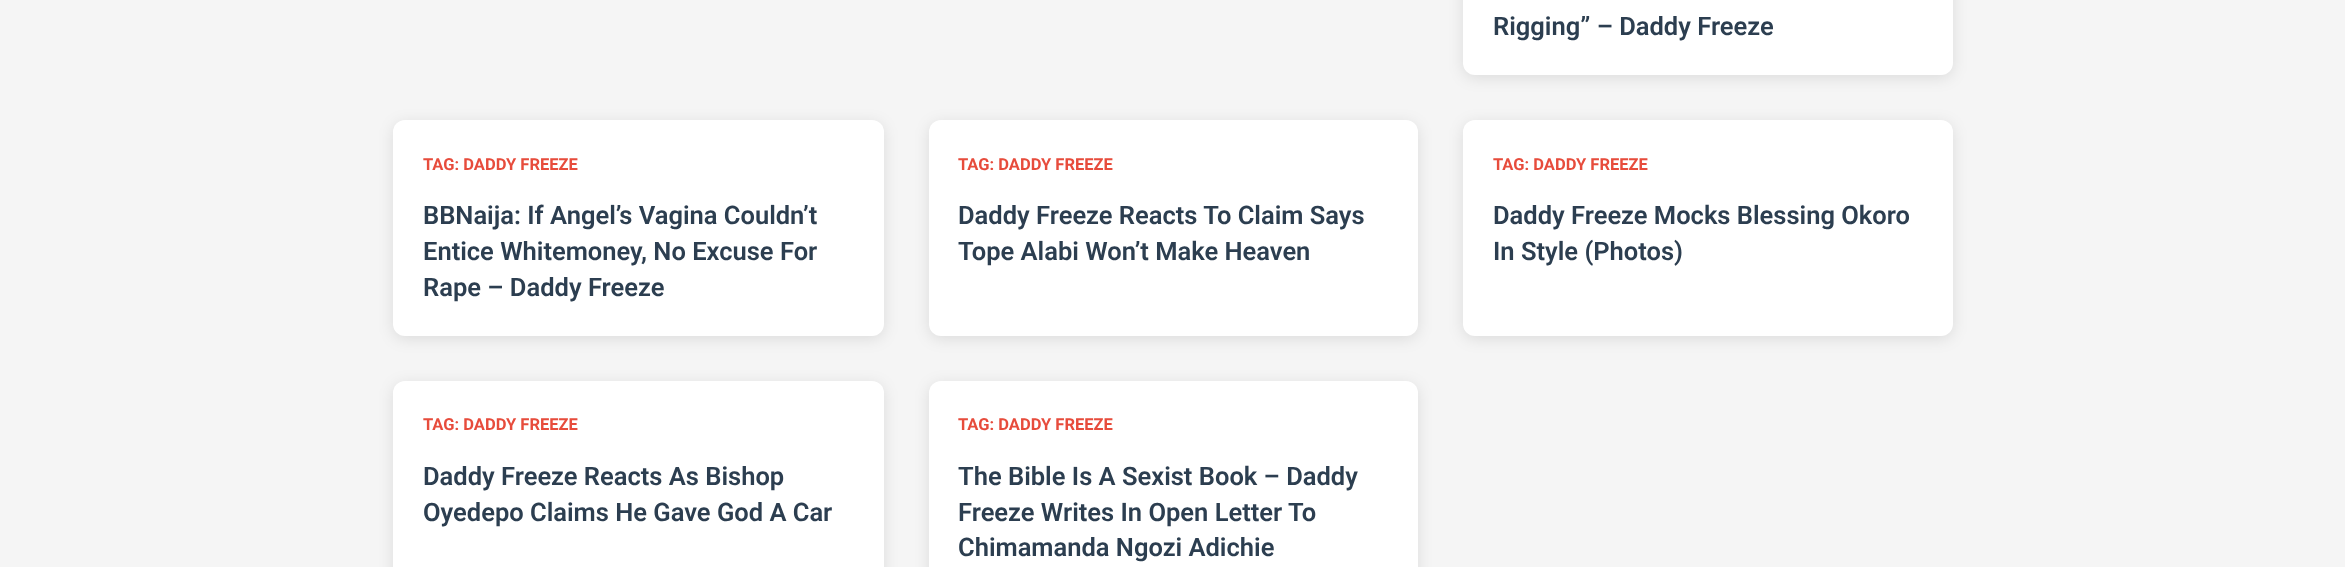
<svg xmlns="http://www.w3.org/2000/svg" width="2345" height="567">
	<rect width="100%" height="100%" fill="#F5F5F5" />
	<rect x="1463" y="-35" width="490" height="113" rx="12" fill="#000000" fill-opacity="0.1" filter="blur(7.5px)" />
	<rect x="1463" y="-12" width="490" height="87" rx="12" fill="#FFFFFF" />
	<text x="1493" y="35" font-family="Roboto" font-size="25.5" font-weight="600" fill="#2C3E50">Rigging” – Daddy Freeze</text>
	<rect x="393" y="123" width="491" height="216" rx="12" fill="#000000" fill-opacity="0.1" filter="blur(7.5px)" />
	<rect x="393" y="120" width="491" height="216" rx="12" fill="#FFFFFF" />
	<text x="423" y="170" font-family="Roboto" font-size="16.5" font-weight="700" fill="#E74C3C">TAG: DADDY FREEZE</text>
	<g font-family="Roboto" font-size="25.5" font-weight="600" fill="#2C3E50">
		<text x="423" y="224">BBNaija: If Angel’s Vagina Couldn’t</text>
		<text x="423" y="260">Entice Whitemoney, No Excuse For</text>
		<text x="423" y="296">Rape – Daddy Freeze</text>
	</g>
	<rect x="929" y="123" width="489" height="216" rx="12" fill="#000000" fill-opacity="0.1" filter="blur(7.5px)" />
	<rect x="929" y="120" width="489" height="216" rx="12" fill="#FFFFFF" />
	<text x="958" y="170" font-family="Roboto" font-size="16.5" font-weight="700" fill="#E74C3C">TAG: DADDY FREEZE</text>
	<g font-family="Roboto" font-size="25.5" font-weight="600" fill="#2C3E50">
		<text x="958" y="224">Daddy Freeze Reacts To Claim Says</text>
		<text x="958" y="260">Tope Alabi Won’t Make Heaven</text>
	</g>
	<rect x="1463" y="123" width="490" height="216" rx="12" fill="#000000" fill-opacity="0.1" filter="blur(7.5px)" />
	<rect x="1463" y="120" width="490" height="216" rx="12" fill="#FFFFFF" />
	<text x="1493" y="170" font-family="Roboto" font-size="16.5" font-weight="700" fill="#E74C3C">TAG: DADDY FREEZE</text>
	<g font-family="Roboto" font-size="25.5" font-weight="600" fill="#2C3E50">
		<text x="1493" y="224">Daddy Freeze Mocks Blessing Okoro</text>
		<text x="1493" y="260">In Style (Photos)</text>
	</g>
	<rect x="393" y="384" width="491" height="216" rx="12" fill="#000000" fill-opacity="0.1" filter="blur(7.5px)" />
	<rect x="393" y="381" width="491" height="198" rx="12" fill="#FFFFFF" />
	<text x="423" y="430" font-family="Roboto" font-size="16.5" font-weight="700" fill="#E74C3C">TAG: DADDY FREEZE</text>
	<g font-family="Roboto" font-size="25.5" font-weight="600" fill="#2C3E50">
		<text x="423" y="485">Daddy Freeze Reacts As Bishop</text>
		<text x="423" y="521">Oyedepo Claims He Gave God A Car</text>
	</g>
	<rect x="929" y="384" width="489" height="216" rx="12" fill="#000000" fill-opacity="0.1" filter="blur(7.5px)" />
	<rect x="929" y="381" width="489" height="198" rx="12" fill="#FFFFFF" />
	<text x="958" y="430" font-family="Roboto" font-size="16.5" font-weight="700" fill="#E74C3C">TAG: DADDY FREEZE</text>
	<g font-family="Roboto" font-size="25.5" font-weight="600" fill="#2C3E50">
		<text x="958" y="485">The Bible Is A Sexist Book – Daddy</text>
		<text x="958" y="521">Freeze Writes In Open Letter To</text>
		<text x="958" y="556">Chimamanda Ngozi Adichie</text>
	</g>
</svg>
